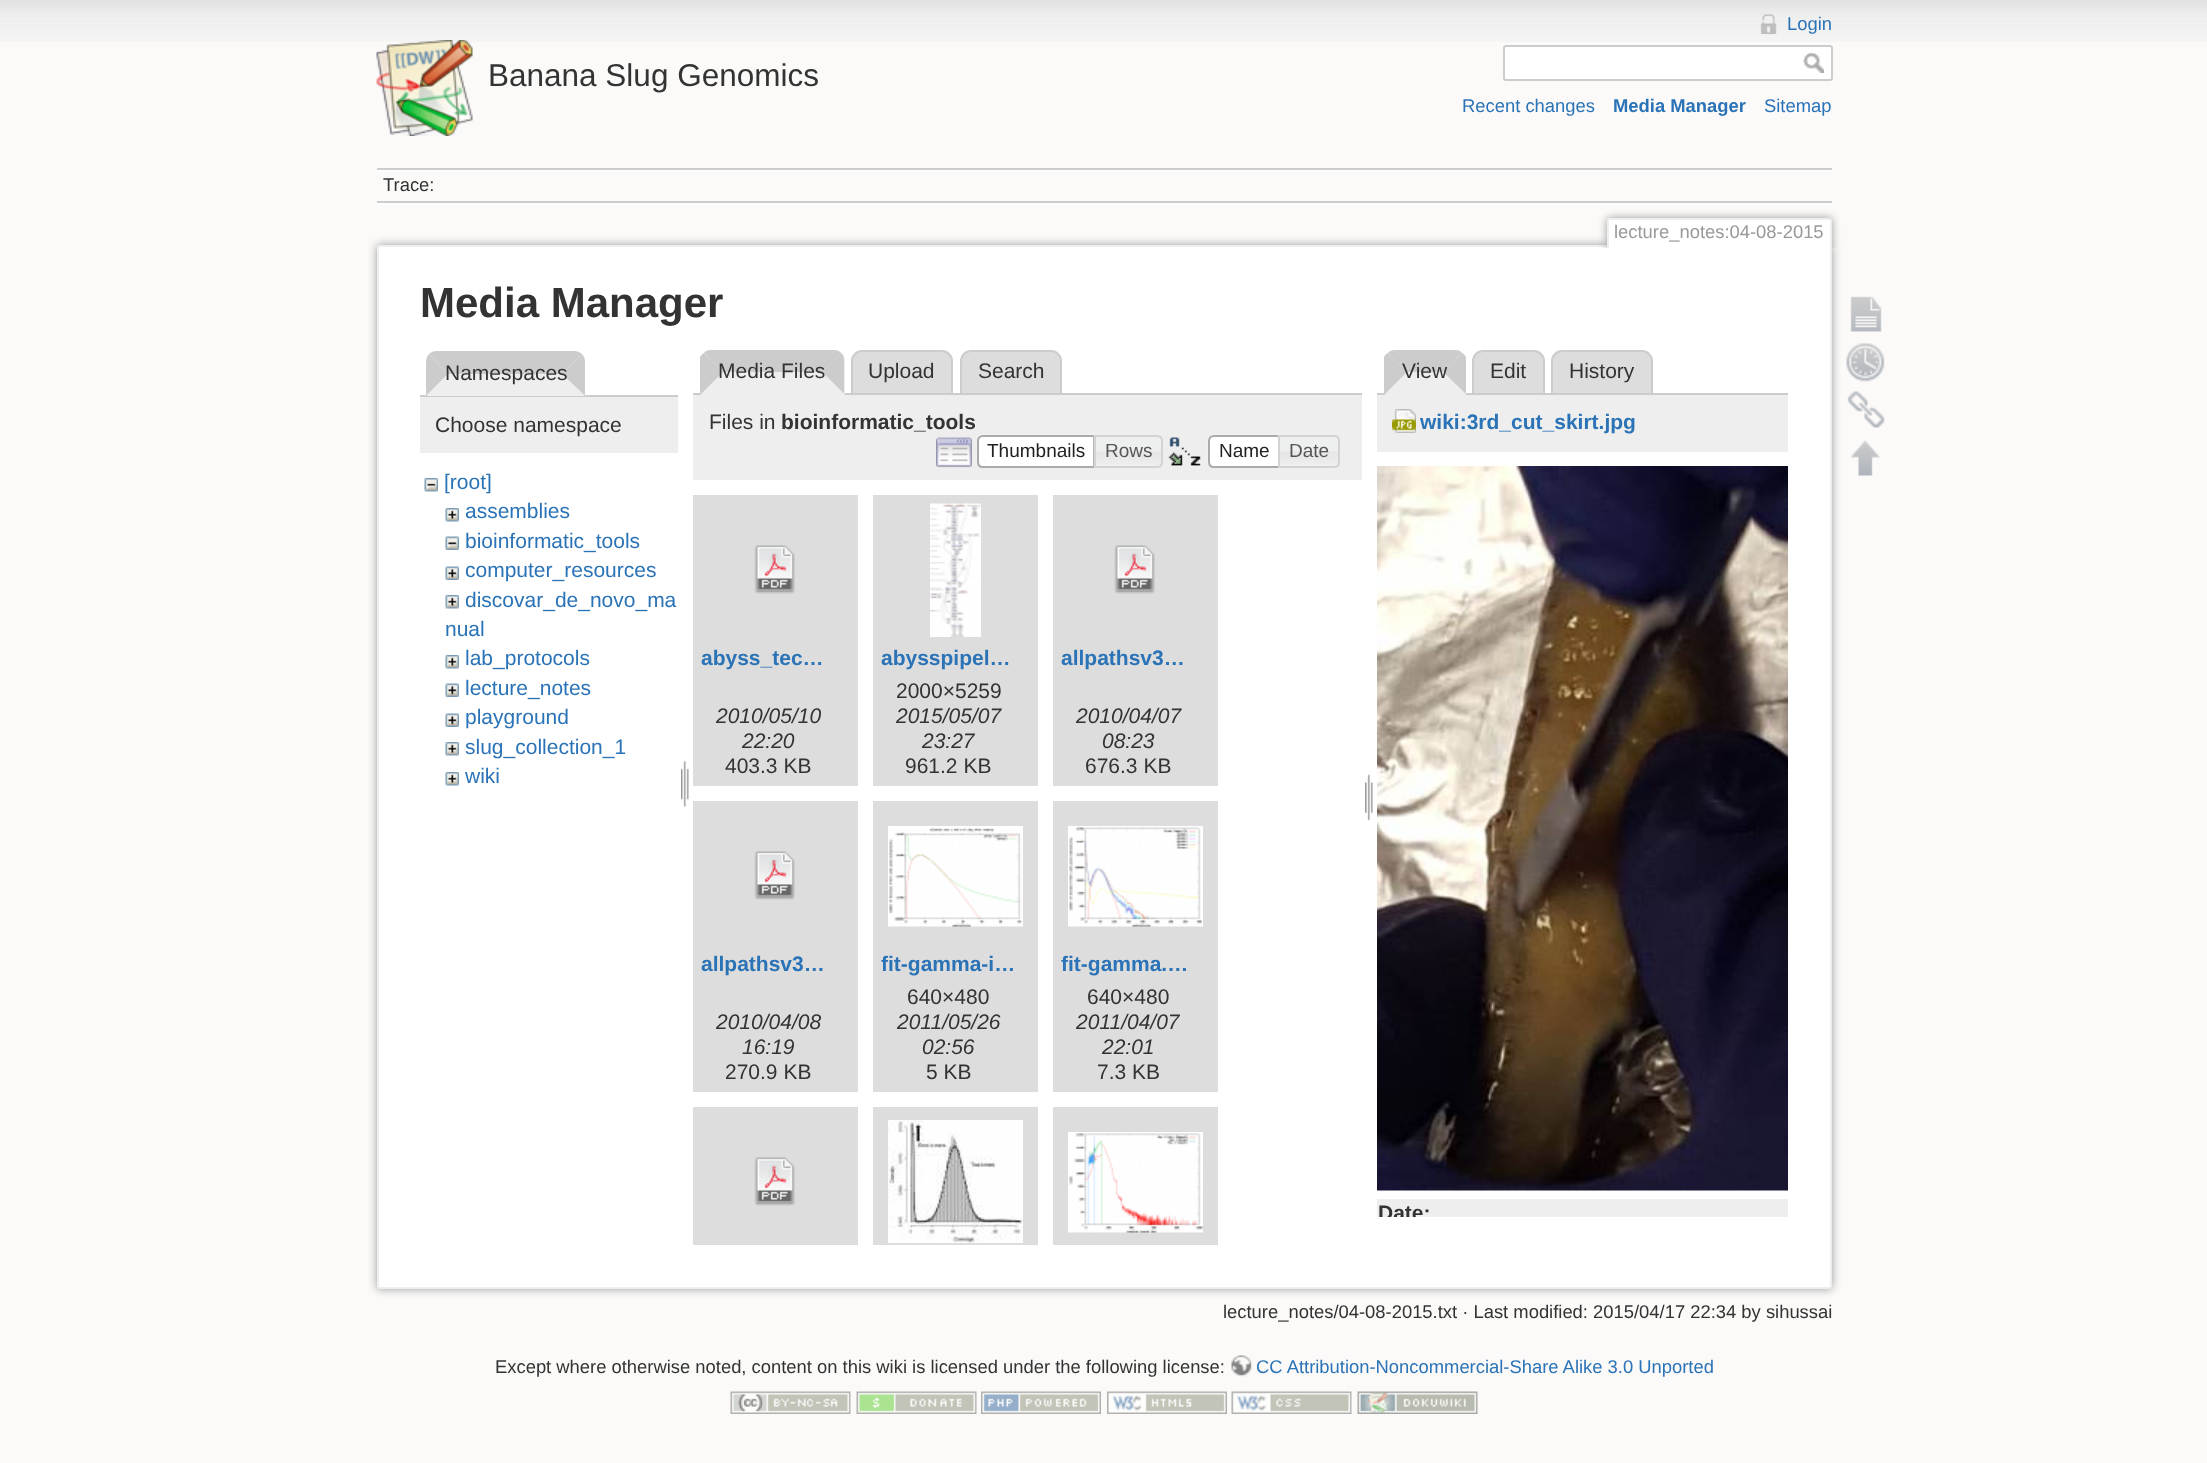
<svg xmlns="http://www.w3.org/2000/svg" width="2207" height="1463">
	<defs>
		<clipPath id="clip1"><rect x="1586" y="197" width="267" height="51" /></clipPath>
		<clipPath id="clip2"><rect x="1377" y="467" width="411" height="750" /></clipPath>
	</defs>
	<rect width="100%" height="100%" fill="#FBFAF9" />
	<image x="0" y="0" width="2207" height="42" href="assets/img1.png" />
	<image x="376" y="40" width="97" height="96" href="assets/img2.png" />
	<text x="488" y="86" font-family="Liberation Sans" font-size="31.5" fill="#333333">Banana Slug Genomics</text>
	<image x="1760" y="14" width="17" height="20" href="assets/img3.png" />
	<text x="1787" y="30" font-family="Liberation Sans" font-size="18.4" fill="#2B73B7">Login</text>
	<rect x="1504" y="46" width="328" height="34" rx="2" fill="#FFFFFF" stroke="#CCCCCC" stroke-width="2" />
	<image x="1803" y="52" width="21" height="21" href="assets/img4.png" />
	<text x="1462" y="112" font-family="Liberation Sans" font-size="18.4" fill="#2B73B7">Recent changes</text>
	<text x="1613" y="112" font-family="Liberation Sans" font-size="18.4" font-weight="700" fill="#2B73B7">Media Manager</text>
	<text x="1764" y="112" font-family="Liberation Sans" font-size="18.4" fill="#2B73B7">Sitemap</text>
	<rect x="377" y="168" width="1455" height="2" fill="#CCCCCC" />
	<rect x="377" y="203" width="1455" height="2" fill="#FFFFFF" />
	<rect x="377" y="170" width="1455" height="2" fill="#FFFFFF" />
	<rect x="377" y="201" width="1455" height="2" fill="#CCCCCC" />
	<text x="383" y="191" font-family="Liberation Sans" font-size="18.4" fill="#333333">Trace:</text>
	<rect x="377" y="245" width="1455" height="1044" rx="3" fill="#999999" filter="blur(5px)" />
	<rect x="378" y="246" width="1453" height="1042" rx="2" fill="#FFFFFF" stroke="#EEEEEE" stroke-width="2" />
	<g clip-path="url(#clip1)">
		<rect x="1607" y="218" width="225" height="30" rx="3" fill="#999999" filter="blur(4.5px)" />
	</g>
	<rect x="1609" y="220" width="221" height="28" fill="#FFFFFF" />
	<rect x="1608" y="218" width="222" height="2" fill="#EEEEEE" />
	<rect x="1830" y="219" width="2" height="29" fill="#EEEEEE" />
	<rect x="1607" y="219" width="2" height="29" fill="#EEEEEE" />
	<text x="1614" y="238" font-family="Liberation Sans" font-size="18.4" fill="#999999">lecture_notes:04-08-2015</text>
	<text x="420" y="317" font-family="Liberation Sans" font-size="42" font-weight="700" fill="#333333">Media Manager</text>
	<path d="M436 351H574C577 351 580 352 582 354L562 374H448L429 354C431 352 434 351 436 351Z" fill="#CCCCCC" />
	<rect x="420" y="395" width="258" height="2" fill="#CCCCCC" />
	<path d="M582 354L562 374L585 396V362C585 359 584 356 582 354Z" fill="#CCCCCC" />
	<path d="M585 396L562 374H448L426 396Z" fill="#EEEEEE" />
	<path d="M426 396V362C426 359 427 356 429 354L448 374Z" fill="#CCCCCC" />
	<text x="445" y="380" font-family="Liberation Sans" font-size="21" fill="#333333">Namespaces</text>
	<rect x="420" y="397" width="258" height="56" fill="#EEEEEE" />
	<text x="435" y="432" font-family="Liberation Sans" font-size="21" fill="#333333">Choose namespace</text>
	<image x="424" y="478" width="14" height="14" href="assets/img5.png" />
	<text x="444" y="489" font-family="Liberation Sans" font-size="21" fill="#2B73B7">[root]</text>
	<image x="445" y="508" width="14" height="14" href="assets/img6.png" />
	<text x="465" y="518" font-family="Liberation Sans" font-size="21" fill="#2B73B7">assemblies</text>
	<image x="445" y="536" width="14" height="14" href="assets/img7.png" />
	<text x="465" y="548" font-family="Liberation Sans" font-size="21" fill="#2B73B7">bioinformatic_tools</text>
	<image x="445" y="566" width="14" height="14" href="assets/img8.png" />
	<text x="465" y="577" font-family="Liberation Sans" font-size="21" fill="#2B73B7">computer_resources</text>
	<image x="445" y="595" width="14" height="14" href="assets/img6.png" />
	<g font-family="Liberation Sans" font-size="21" fill="#2B73B7">
		<text x="465" y="607">discovar_de_novo_ma</text>
		<text x="445" y="636">nual</text>
	</g>
	<image x="445" y="655" width="14" height="14" href="assets/img6.png" />
	<text x="465" y="665" font-family="Liberation Sans" font-size="21" fill="#2B73B7">lab_protocols</text>
	<image x="445" y="683" width="14" height="14" href="assets/img8.png" />
	<text x="465" y="695" font-family="Liberation Sans" font-size="21" fill="#2B73B7">lecture_notes</text>
	<image x="445" y="713" width="14" height="14" href="assets/img8.png" />
	<text x="465" y="724" font-family="Liberation Sans" font-size="21" fill="#2B73B7">playground</text>
	<image x="445" y="742" width="14" height="14" href="assets/img6.png" />
	<text x="465" y="754" font-family="Liberation Sans" font-size="21" fill="#2B73B7">slug_collection_1</text>
	<image x="445" y="772" width="14" height="14" href="assets/img6.png" />
	<text x="465" y="783" font-family="Liberation Sans" font-size="21" fill="#2B73B7">wiki</text>
	<image x="681" y="760" width="8" height="47" href="assets/img9.png" />
	<path d="M862 351H942C947.5 351 952 355.5 952 361V394H852V361C852 355.5 856.5 351 862 351Z" fill="#DDDDDD" stroke="#CCCCCC" stroke-width="2" />
	<path d="M971 351H1051C1056.5 351 1061 355.5 1061 361V394H961V361C961 355.5 965.5 351 971 351Z" fill="#DDDDDD" stroke="#CCCCCC" stroke-width="2" />
	<rect x="693" y="393" width="669" height="2" fill="#CCCCCC" />
	<path d="M712 350H834C840 350 845 355 845 361V395H701V361C701 355 706 350 712 350Z" fill="#EEEEEE" />
	<path d="M711 350C708 350 705 351 704 353L723 372H822L841 353C840 351 837 350 834 350Z" fill="#CCCCCC" />
	<path d="M844 394V360C844 357 843 354 841 353L822 372Z" fill="#CCCCCC" />
	<path d="M844 394L822 372H723L701 394Z" fill="#EEEEEE" />
	<path d="M700 357C701 355 702 354 704 353L723 372L701 394H700Z" fill="#CCCCCC" />
	<g font-family="Liberation Sans" font-size="21" fill="#333333">
		<text x="718" y="378">Media Files</text>
		<text x="868" y="378">Upload</text>
		<text x="978" y="378">Search</text>
	</g>
	<rect x="693" y="395" width="669" height="85" fill="#EEEEEE" />
	<text x="709" y="429" font-family="Liberation Sans" font-size="21" fill="#333333">Files in</text>
	<text x="781" y="429" font-family="Liberation Sans" font-size="21" font-weight="700" fill="#333333">bioinformatic_tools</text>
	<image x="936" y="437" width="36" height="31" href="assets/img10.png" />
	<path d="M983 435H1095V468H983C979.5 468 977 465.5 977 462V441C977 437.5 979.5 435 983 435Z" fill="#FFFFFF" />
	<image x="976" y="434" width="119" height="31" href="assets/img11.png" />
	<path d="M983 436H1094V467H983C980 467 978 465 978 462V441C978 438 980 436 983 436Z" fill="none" stroke="#AAAAAA" stroke-width="2" />
	<text x="987" y="457" font-family="Liberation Sans" font-size="19" fill="#212121">Thumbnails</text>
	<image x="1093" y="435" width="69" height="33" href="assets/img12.png" />
	<path d="M1095 436H1157C1160 436 1162 438 1162 441V462C1162 465 1160 467 1157 467H1095Z" fill="none" stroke="#D3D3D3" stroke-width="2" />
	<text x="1105" y="457" font-family="Liberation Sans" font-size="19" fill="#555555">Rows</text>
	<image x="1168" y="437" width="33" height="29" href="assets/img13.png" />
	<path d="M1214 435H1280V468H1214C1210.5 468 1208 465.5 1208 462V441C1208 437.5 1210.5 435 1214 435Z" fill="#FFFFFF" />
	<image x="1207" y="434" width="72" height="31" href="assets/img14.png" />
	<path d="M1214 436H1279V467H1214C1211 467 1209 465 1209 462V441C1209 438 1211 436 1214 436Z" fill="none" stroke="#AAAAAA" stroke-width="2" />
	<text x="1219" y="457" font-family="Liberation Sans" font-size="19" fill="#212121">Name</text>
	<image x="1280" y="435" width="59" height="32" href="assets/img15.png" />
	<path d="M1279 436H1334C1337 436 1339 438 1339 441V462C1339 465 1337 467 1334 467H1279Z" fill="none" stroke="#D3D3D3" stroke-width="2" />
	<text x="1289" y="457" font-family="Liberation Sans" font-size="19" fill="#555555">Date</text>
	<rect x="693" y="495" width="165" height="291" fill="#DDDDDD" />
	<image x="754" y="545" width="41" height="49" href="assets/img16.png" />
	<text x="701" y="665" font-family="Liberation Sans" font-size="21" font-weight="700" fill="#2B73B7">abyss_tec…</text>
	<g font-family="Liberation Sans" font-size="21" font-style="italic" fill="#333333">
		<text x="716" y="723">2010/05/10</text>
		<text x="742" y="748">22:20</text>
	</g>
	<text x="725" y="773" font-family="Liberation Sans" font-size="21" fill="#333333">403.3 KB</text>
	<rect x="873" y="495" width="165" height="291" fill="#DDDDDD" />
	<image x="930" y="503" width="51" height="134" href="assets/img17.png" />
	<text x="881" y="665" font-family="Liberation Sans" font-size="21" font-weight="700" fill="#2B73B7">abysspipel…</text>
	<text x="896" y="698" font-family="Liberation Sans" font-size="21" fill="#333333">2000×5259</text>
	<g font-family="Liberation Sans" font-size="21" font-style="italic" fill="#333333">
		<text x="896" y="723">2015/05/07</text>
		<text x="922" y="748">23:27</text>
	</g>
	<text x="905" y="773" font-family="Liberation Sans" font-size="21" fill="#333333">961.2 KB</text>
	<rect x="1053" y="495" width="165" height="291" fill="#DDDDDD" />
	<image x="1114" y="545" width="41" height="49" href="assets/img18.png" />
	<text x="1061" y="665" font-family="Liberation Sans" font-size="21" font-weight="700" fill="#2B73B7">allpathsv3…</text>
	<g font-family="Liberation Sans" font-size="21" font-style="italic" fill="#333333">
		<text x="1076" y="723">2010/04/07</text>
		<text x="1102" y="748">08:23</text>
	</g>
	<text x="1085" y="773" font-family="Liberation Sans" font-size="21" fill="#333333">676.3 KB</text>
	<rect x="693" y="801" width="165" height="291" fill="#DDDDDD" />
	<image x="754" y="851" width="41" height="49" href="assets/img16.png" />
	<text x="701" y="971" font-family="Liberation Sans" font-size="21" font-weight="700" fill="#2B73B7">allpathsv3…</text>
	<g font-family="Liberation Sans" font-size="21" font-style="italic" fill="#333333">
		<text x="716" y="1029">2010/04/08</text>
		<text x="742" y="1054">16:19</text>
	</g>
	<text x="725" y="1079" font-family="Liberation Sans" font-size="21" fill="#333333">270.9 KB</text>
	<rect x="873" y="801" width="165" height="291" fill="#DDDDDD" />
	<image x="888" y="826" width="135" height="101" href="assets/img19.png" />
	<text x="881" y="971" font-family="Liberation Sans" font-size="21" font-weight="700" fill="#2B73B7">fit-gamma-i…</text>
	<text x="907" y="1004" font-family="Liberation Sans" font-size="21" fill="#333333">640×480</text>
	<g font-family="Liberation Sans" font-size="21" font-style="italic" fill="#333333">
		<text x="897" y="1029">2011/05/26</text>
		<text x="922" y="1054">02:56</text>
	</g>
	<text x="926" y="1079" font-family="Liberation Sans" font-size="21" fill="#333333">5 KB</text>
	<rect x="1053" y="801" width="165" height="291" fill="#DDDDDD" />
	<image x="1068" y="826" width="135" height="101" href="assets/img20.png" />
	<text x="1061" y="971" font-family="Liberation Sans" font-size="21" font-weight="700" fill="#2B73B7">fit-gamma.…</text>
	<text x="1087" y="1004" font-family="Liberation Sans" font-size="21" fill="#333333">640×480</text>
	<g font-family="Liberation Sans" font-size="21" font-style="italic" fill="#333333">
		<text x="1076" y="1029">2011/04/07</text>
		<text x="1102" y="1054">22:01</text>
	</g>
	<text x="1097" y="1079" font-family="Liberation Sans" font-size="21" fill="#333333">7.3 KB</text>
	<rect x="693" y="1107" width="165" height="138" fill="#DDDDDD" />
	<image x="754" y="1157" width="41" height="49" href="assets/img16.png" />
	<rect x="873" y="1107" width="165" height="138" fill="#DDDDDD" />
	<image x="888" y="1120" width="135" height="123" href="assets/img21.png" />
	<rect x="1053" y="1107" width="165" height="138" fill="#DDDDDD" />
	<image x="1068" y="1132" width="135" height="101" href="assets/img22.png" />
	<image x="1365" y="773" width="8" height="48" href="assets/img23.png" />
	<path d="M1483 351H1534C1539.5 351 1544 355.5 1544 361V394H1473V361C1473 355.5 1477.5 351 1483 351Z" fill="#DDDDDD" stroke="#CCCCCC" stroke-width="2" />
	<path d="M1562 351H1642C1647.5 351 1652 355.5 1652 361V394H1552V361C1552 355.5 1556.5 351 1562 351Z" fill="#DDDDDD" stroke="#CCCCCC" stroke-width="2" />
	<rect x="1377" y="393" width="411" height="2" fill="#CCCCCC" />
	<path d="M1396 350H1455C1461 350 1466 355 1466 361V395H1385V361C1385 355 1390 350 1396 350Z" fill="#EEEEEE" />
	<path d="M1395 350C1392 350 1389 351 1388 353L1407 372H1443L1462 353C1461 351 1458 350 1455 350Z" fill="#CCCCCC" />
	<path d="M1466 394L1443 372L1462 353C1464 354 1465 355 1466 357Z" fill="#CCCCCC" />
	<path d="M1465 394L1443 372H1407L1385 394Z" fill="#EEEEEE" />
	<path d="M1384 357C1385 355 1386 354 1388 353L1407 372L1385 394H1384Z" fill="#CCCCCC" />
	<g font-family="Liberation Sans" font-size="21" fill="#333333">
		<text x="1402" y="378">View</text>
		<text x="1490" y="378">Edit</text>
		<text x="1569" y="378">History</text>
	</g>
	<rect x="1377" y="395" width="411" height="57" fill="#EEEEEE" />
	<image x="1392" y="409" width="24" height="24" href="assets/img24.png" />
	<text x="1420" y="429" font-family="Liberation Sans" font-size="21" font-weight="700" fill="#2B73B7">wiki:3rd_cut_skirt.jpg</text>
	<image x="1377" y="466" width="411" height="725" href="assets/img25.png" />
	<rect x="1377" y="1199" width="411" height="18" fill="#EEEEEE" />
	<g clip-path="url(#clip2)">
		<text x="1378" y="1220" font-family="Liberation Sans" font-size="21" font-weight="700" fill="#333333">Date:</text>
	</g>
	<text x="1223" y="1318" font-family="Liberation Sans" font-size="18.4" fill="#333333">lecture_notes/04-08-2015.txt · Last modified: 2015/04/17 22:34 by sihussai</text>
	<image x="1850" y="296" width="32" height="36" href="assets/img26.png" />
	<image x="1846" y="343" width="39" height="39" href="assets/img27.png" />
	<image x="1847" y="391" width="38" height="37" href="assets/img28.png" />
	<image x="1851" y="440" width="29" height="36" href="assets/img29.png" />
	<text x="495" y="1373" font-family="Liberation Sans" font-size="18.4" fill="#333333">Except where otherwise noted, content on this wiki is licensed under the following license:</text>
	<image x="1231" y="1355" width="21" height="22" href="assets/img30.png" />
	<text x="1256" y="1373" font-family="Liberation Sans" font-size="18.4" fill="#2B73B7">CC Attribution-Noncommercial-Share Alike 3.0 Unported</text>
	<image x="730" y="1391" width="121" height="23" href="assets/img31.png" />
	<image x="856" y="1391" width="121" height="23" href="assets/img32.png" />
	<image x="981" y="1391" width="120" height="23" href="assets/img33.png" />
	<image x="1107" y="1391" width="120" height="23" href="assets/img34.png" />
	<image x="1231" y="1391" width="121" height="23" href="assets/img35.png" />
	<image x="1357" y="1391" width="121" height="23" href="assets/img36.png" />
</svg>
